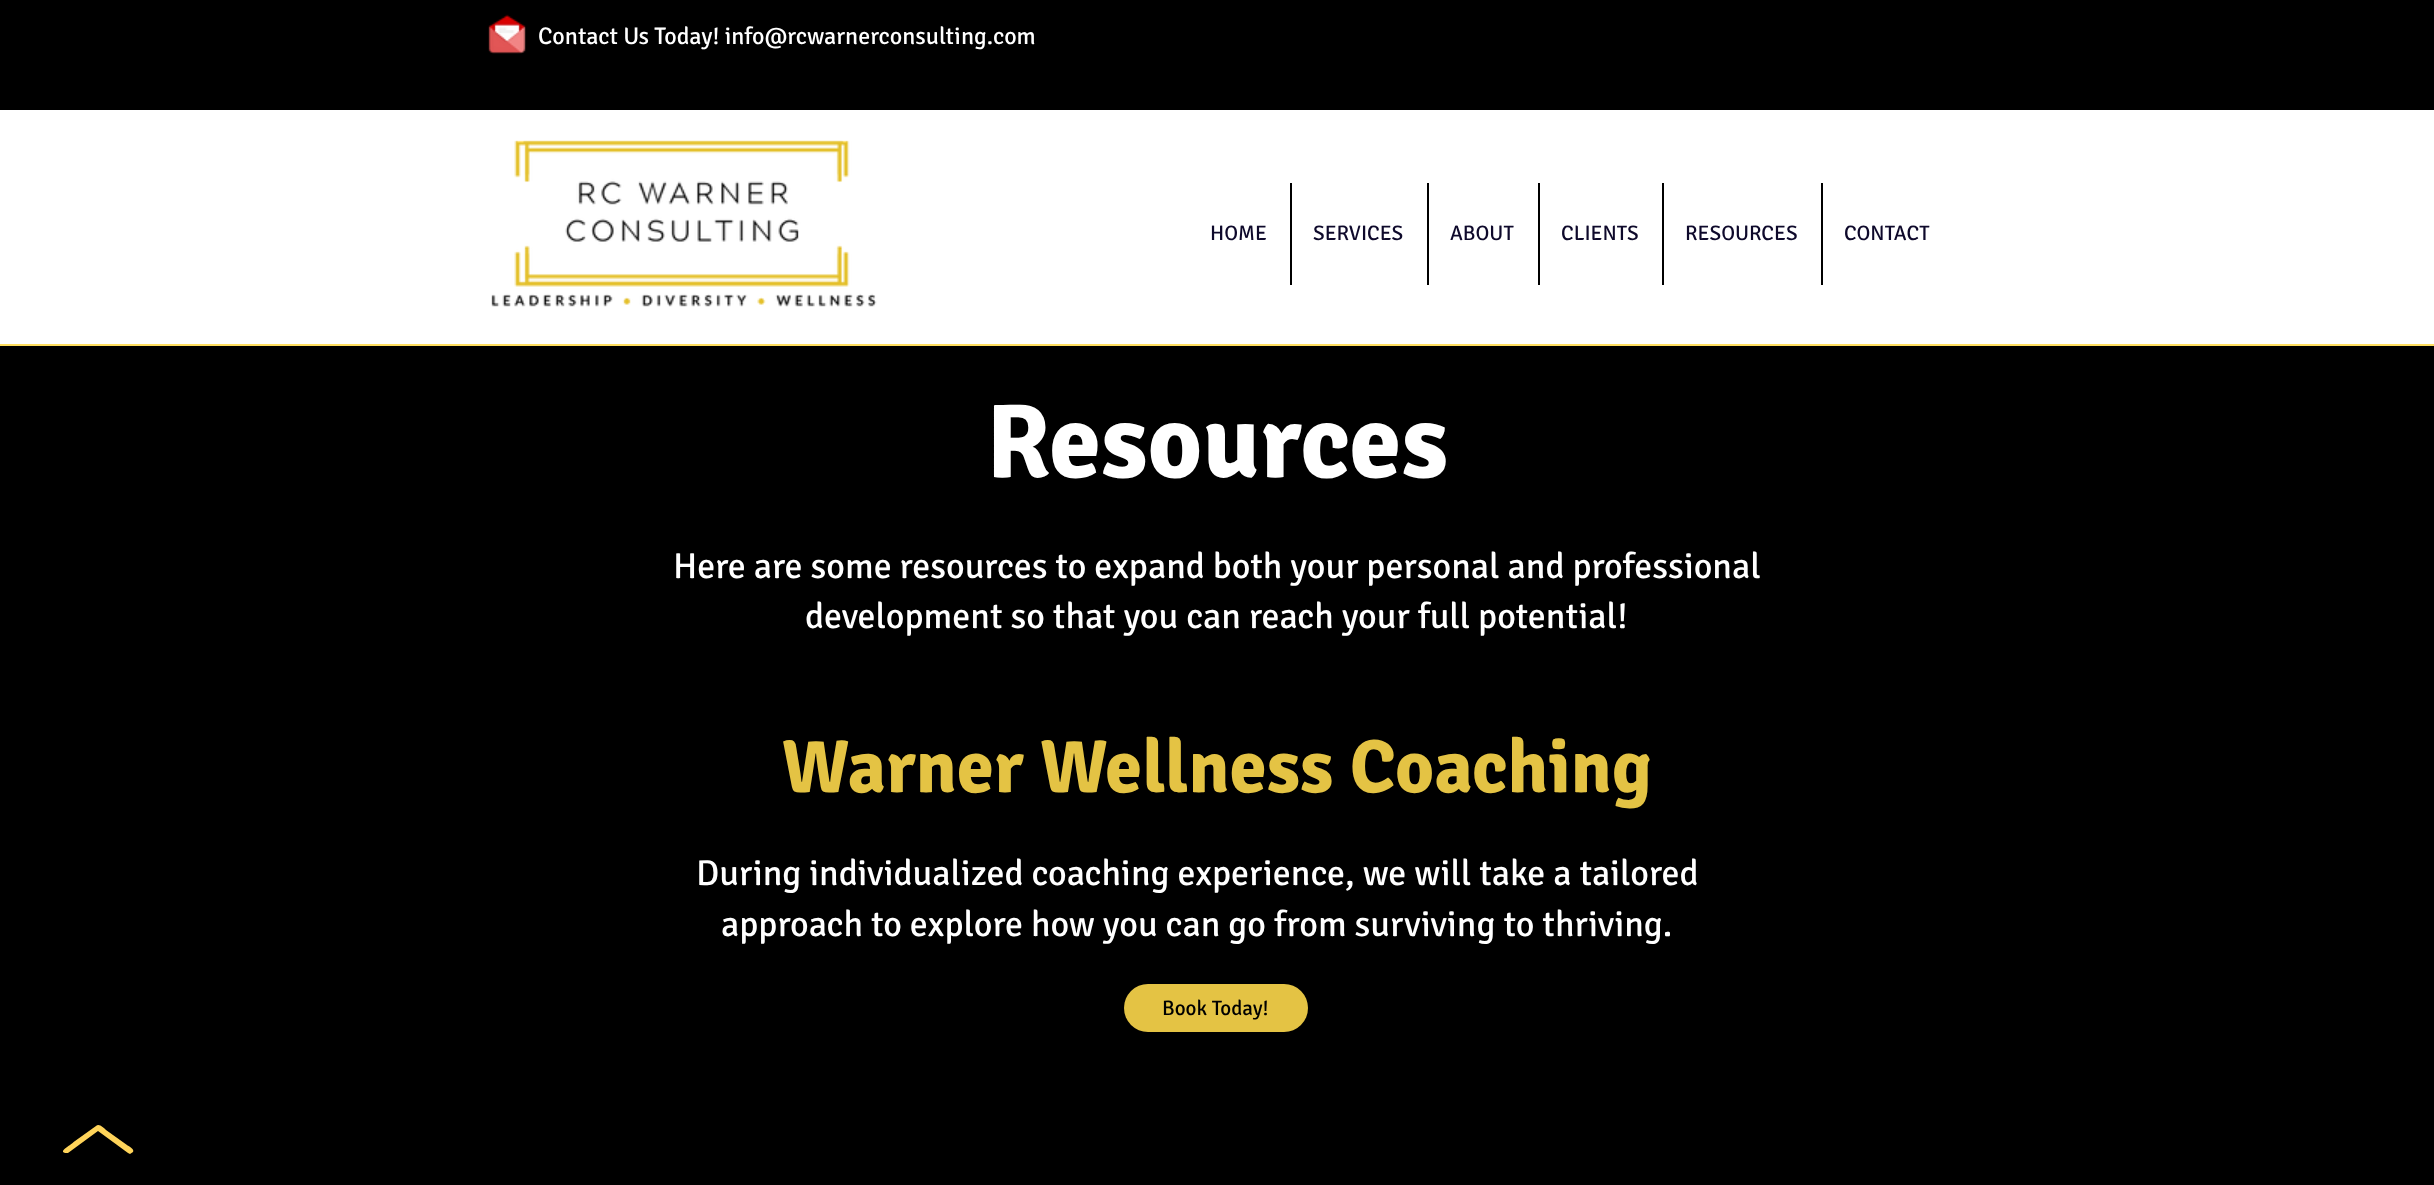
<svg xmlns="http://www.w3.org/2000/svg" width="2434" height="1185">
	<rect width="100%" height="100%" fill="#000000" />
	<image x="488" y="14" width="38" height="40" href="assets/img1.png" />
	<text x="538" y="44" font-family="Signika" font-size="24" fill="#FFFFFF">Contact Us Today! info@rcwarnerconsulting.com</text>
	<rect x="0" y="110" width="2434" height="234" fill="#FFFFFF" />
	<image x="491" y="140" width="386" height="167" href="assets/img2.png" />
	<text x="1210" y="240" font-family="Signika" font-size="21" fill="#0E092B">HOME</text>
	<rect x="1290" y="183" width="2" height="102" fill="#000000" />
	<text x="1313" y="240" font-family="Signika" font-size="21" fill="#0E092B">SERVICES</text>
	<rect x="1427" y="183" width="2" height="102" fill="#000000" />
	<text x="1450" y="240" font-family="Signika" font-size="21" fill="#0E092B">ABOUT</text>
	<rect x="1538" y="183" width="2" height="102" fill="#000000" />
	<text x="1561" y="240" font-family="Signika" font-size="21" fill="#0E092B">CLIENTS</text>
	<rect x="1662" y="183" width="2" height="102" fill="#000000" />
	<text x="1685" y="240" font-family="Signika" font-size="21" fill="#0E092B">RESOURCES</text>
	<rect x="1821" y="183" width="2" height="102" fill="#000000" />
	<text x="1844" y="240" font-family="Signika" font-size="21" fill="#0E092B">CONTACT</text>
	<rect x="0" y="344" width="2434" height="2" fill="#FFDE5F" />
	<text x="986" y="477" font-family="Signika" font-size="105" font-weight="700" fill="#FFFFFF">Resources</text>
	<g font-family="Signika" font-size="36" fill="#FFFFFF">
		<text x="673" y="578">Here are some resources to expand both your personal and professional</text>
		<text x="805" y="628">development so that you can reach your full potential!</text>
	</g>
	<text x="782" y="792" font-family="Signika" font-size="75" font-weight="700" fill="#E4C344">Warner Wellness Coaching</text>
	<g font-family="Signika" font-size="36" fill="#FFFFFF">
		<text x="696" y="885">During individualized coaching experience, we will take a tailored</text>
		<text x="721" y="936">approach to explore how you can go from surviving to thriving.</text>
	</g>
	<rect x="1124" y="984" width="184" height="48" rx="24" fill="#E4C344" />
	<text x="1162" y="1015" font-family="Signika" font-size="21" fill="#000000">Book Today!</text>
	<path d="M130 1154L128 1153L98 1131L68 1153H65C59 1151 68 1147 75 1141L96 1126C99 1123 104 1128 106 1130L127 1145C128 1146 135 1149 133 1152Z" fill="#FFD45A" />
</svg>
